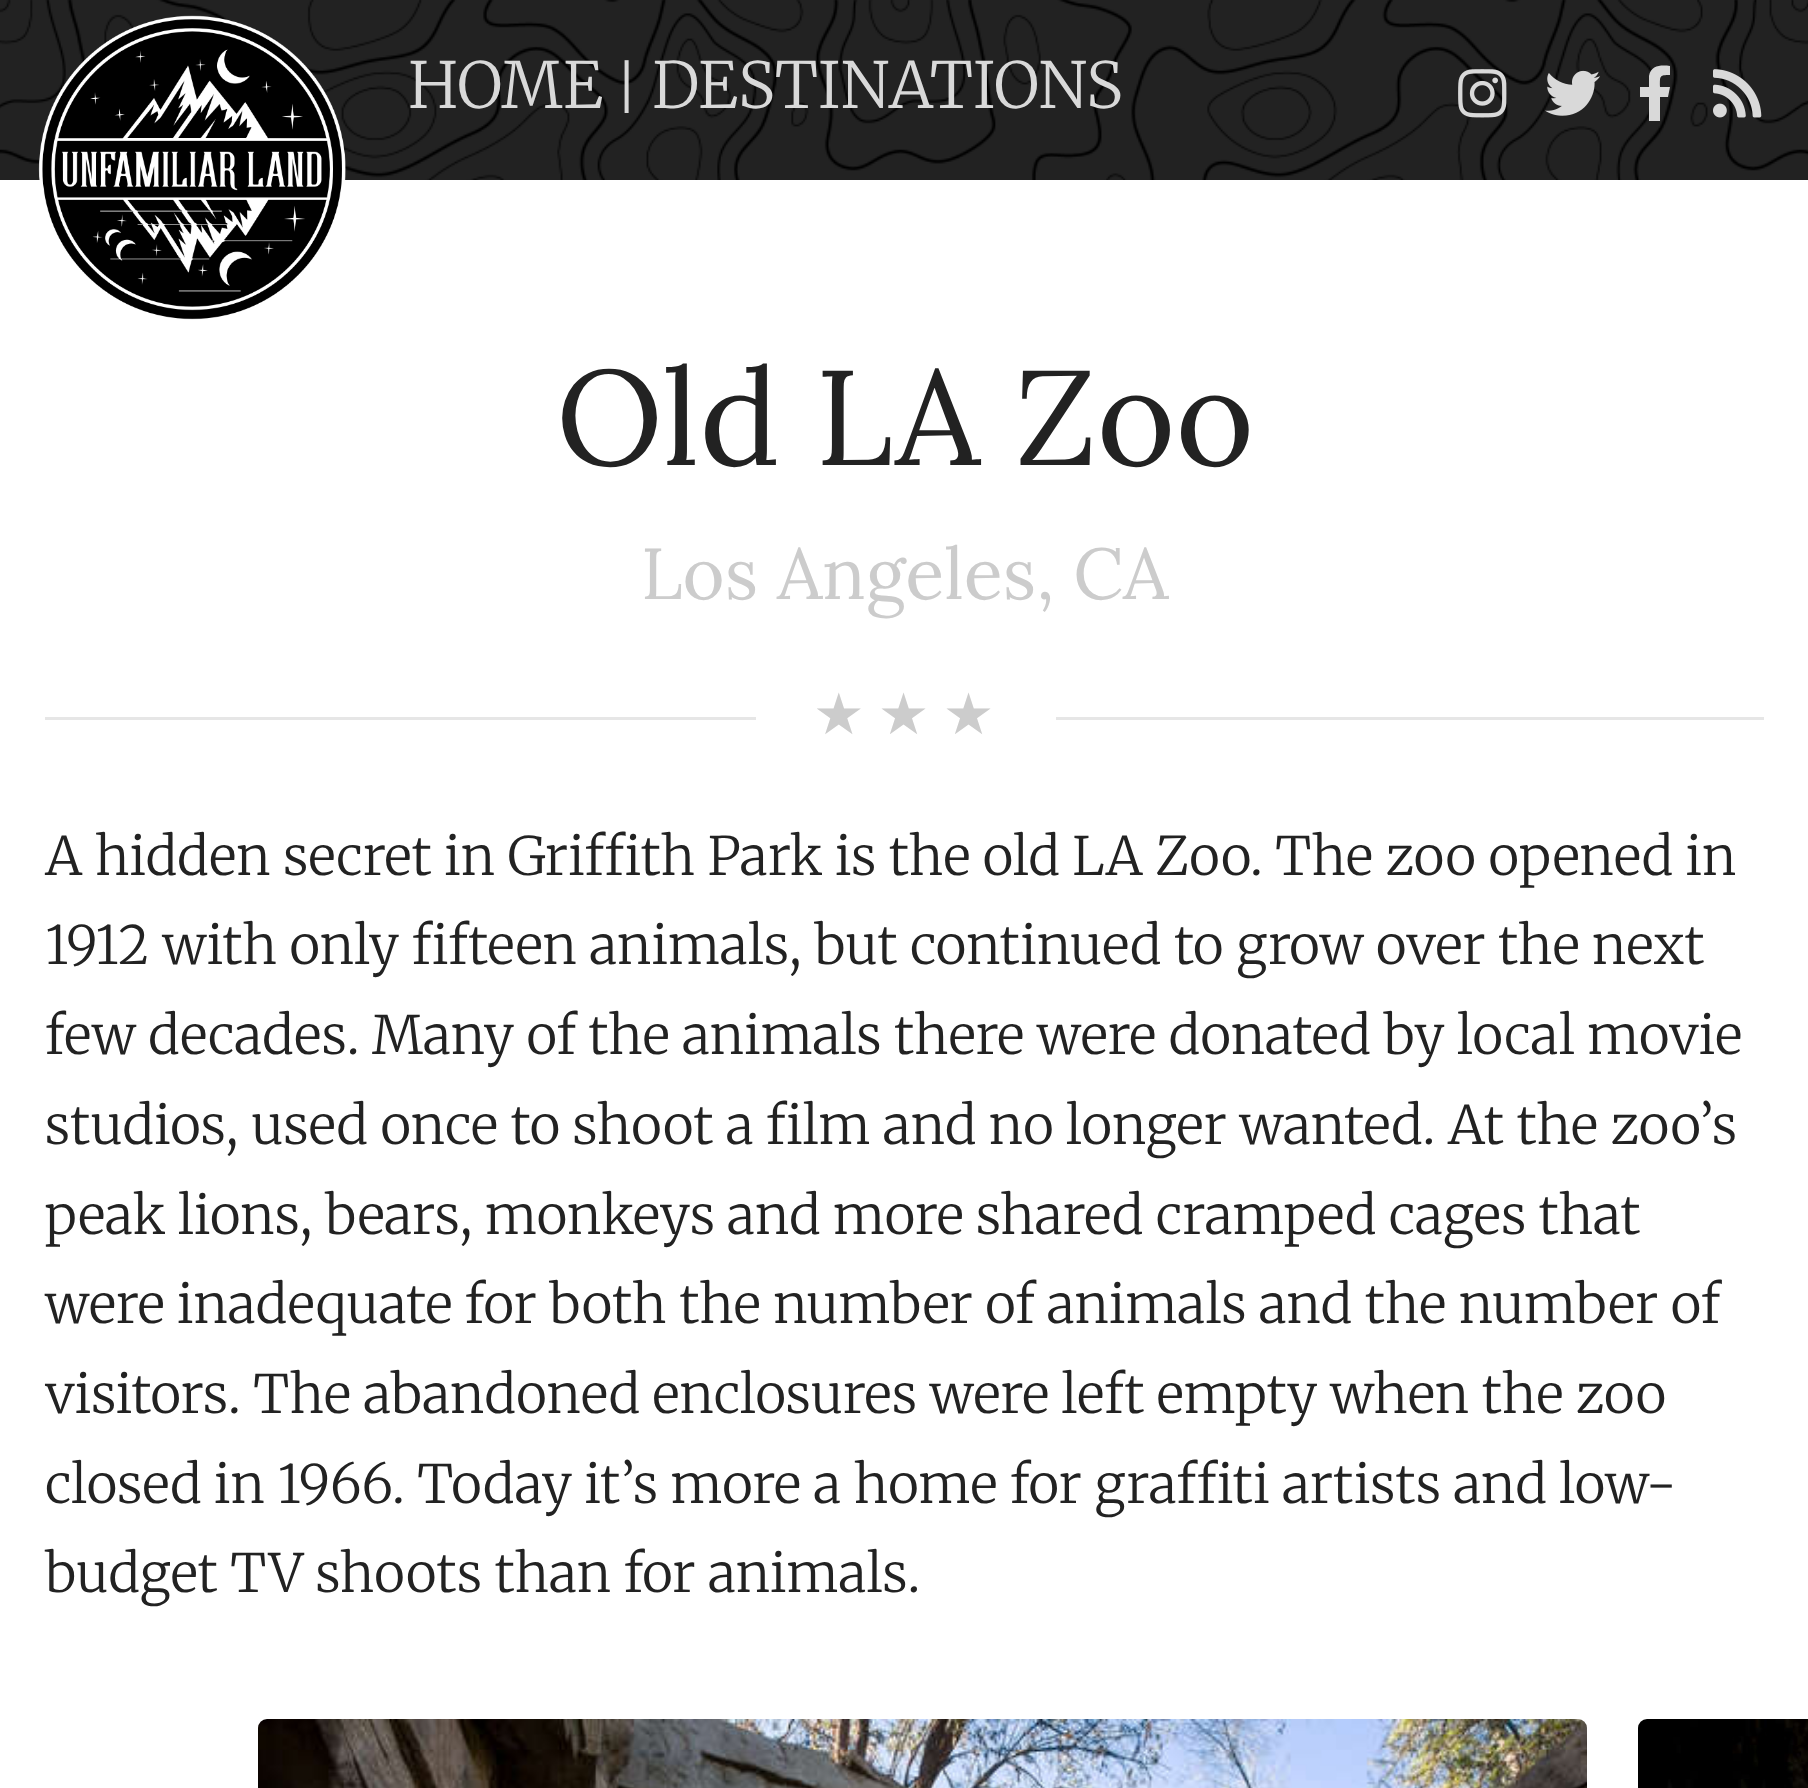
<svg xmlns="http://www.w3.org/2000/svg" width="1808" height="1788">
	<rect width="100%" height="100%" fill="#FFFFFF" />
	<image x="0" y="0" width="1808" height="180" href="assets/img1.png" />
	<image x="38" y="15" width="308" height="305" href="assets/img2.png" />
	<text x="408" y="108" font-family="Merriweather" font-size="63.5" font-weight="300" fill="#D9D9D9">HOME</text>
	<text x="615" y="108" font-family="Merriweather" font-size="55" font-weight="300" fill="#D9D9D9">|</text>
	<text x="652" y="108" font-family="Merriweather" font-size="63.5" font-weight="300" fill="#D9D9D9">DESTINATIONS</text>
	<image x="1458" y="69" width="49" height="49" href="assets/img3.png" />
	<image x="1545" y="70" width="55" height="46" href="assets/img4.png" />
	<path d="M1668 97H1660V121H1649V97H1640V87H1649V76C1651 65 1661 65 1670 66V75C1659 75 1660 76 1660 87H1670Z" fill="#D9D9D9" />
	<image x="1713" y="69" width="49" height="49" href="assets/img5.png" />
	<text x="556" y="465" font-family="Lora" font-size="134.5" fill="#222222">Old LA Zoo</text>
	<text x="641" y="599" font-family="Lora" font-size="72" fill="#CCCCCC">Los Angeles, CA</text>
	<rect x="45" y="717" width="1719" height="3" fill="#E6E6E6" />
	<rect x="756" y="717" width="300" height="3" fill="#FFFFFF" />
	<text x="813" y="734" word-spacing="-5" font-family="DejaVu Sans" font-size="57.5" fill="#CCCCCC">★ ★ ★</text>
	<g font-family="Merriweather" font-size="52.8" font-weight="300" fill="#222222">
		<text x="45" y="875">A hidden secret in Griffith Park is the old LA Zoo. The zoo opened in</text>
		<text x="45" y="964">1912 with only fifteen animals, but continued to grow over the next</text>
		<text x="45" y="1054">few decades. Many of the animals there were donated by local movie</text>
		<text x="45" y="1144">studios, used once to shoot a film and no longer wanted. At the zoo’s</text>
		<text x="45" y="1234">peak lions, bears, monkeys and more shared cramped cages that</text>
		<text x="45" y="1323">were inadequate for both the number of animals and the number of</text>
		<text x="45" y="1413">visitors. The abandoned enclosures were left empty when the zoo</text>
		<text x="45" y="1503">closed in 1966. Today it’s more a home for graffiti artists and low-</text>
		<text x="45" y="1592">budget TV shoots than for animals.</text>
	</g>
	<image x="258" y="1719" width="1329" height="69" href="assets/img6.png" />
	<image x="1638" y="1719" width="170" height="69" href="assets/img7.png" />
</svg>
